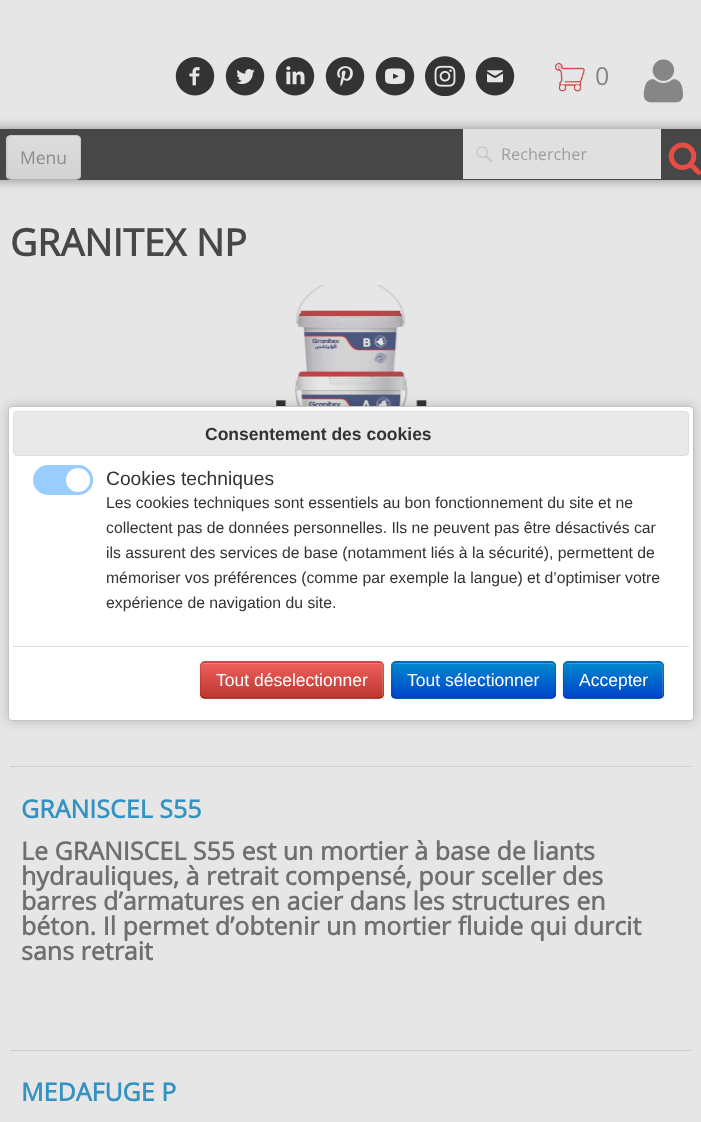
<svg xmlns="http://www.w3.org/2000/svg" width="701" height="1122">
	<defs>
		<clipPath id="clip1"><rect x="6" y="135" width="75" height="45" rx="5" /></clipPath>
		<linearGradient id="g1" gradientUnits="userSpaceOnUse" x1="44" y1="136" x2="44" y2="179"><stop offset="0" stop-color="#DCDCDC" /><stop offset="1" stop-color="#D3D3D3" /></linearGradient>
		<clipPath id="clip2"><rect x="200" y="661" width="184" height="38" rx="5" /></clipPath>
		<linearGradient id="g2" gradientUnits="userSpaceOnUse" x1="292" y1="663" x2="292" y2="698"><stop offset="0" stop-color="#EE5F5B" /><stop offset="1" stop-color="#BD362F" /></linearGradient>
		<clipPath id="clip3"><rect x="391" y="661" width="165" height="38" rx="5" /></clipPath>
		<linearGradient id="g3" gradientUnits="userSpaceOnUse" x1="474" y1="663" x2="474" y2="698"><stop offset="0" stop-color="#0088CC" /><stop offset="1" stop-color="#0044CC" /></linearGradient>
		<clipPath id="clip4"><rect x="563" y="661" width="101" height="38" rx="5" /></clipPath>
		<linearGradient id="g4" gradientUnits="userSpaceOnUse" x1="613" y1="663" x2="613" y2="698"><stop offset="0" stop-color="#0088CC" /><stop offset="1" stop-color="#0044CC" /></linearGradient>
	</defs>
	<rect width="100%" height="100%" fill="#E6E6E6" />
	<image x="175" y="57" width="40" height="39" href="assets/img1.png" />
	<image x="225" y="57" width="40" height="39" href="assets/img2.png" />
	<image x="275" y="57" width="40" height="39" href="assets/img3.png" />
	<image x="325" y="57" width="40" height="39" href="assets/img4.png" />
	<image x="375" y="57" width="40" height="39" href="assets/img5.png" />
	<image x="425" y="56" width="40" height="40" href="assets/img6.png" />
	<image x="475" y="57" width="40" height="39" href="assets/img7.png" />
	<image x="555" y="62" width="30" height="30" href="assets/img8.png" />
	<text x="595" y="85" font-family="Open Sans" font-size="25" fill="#868686">0</text>
	<image x="643" y="59" width="40" height="44" href="assets/img9.png" />
	<rect x="-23" y="129" width="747" height="51" rx="5" fill="#333333" fill-opacity="0.5" filter="blur(6px)" />
	<rect x="0" y="129" width="701" height="51" fill="#474747" />
	<path d="M6 139V176C6 179 8 181 11 181H76C79 181 81 179 81 177C80 179 78 180 76 180H11C8 180 6 178 6 175Z" fill="#E6E6E6" fill-opacity="0.07" />
	<rect x="6" y="135" width="75" height="45" rx="5" fill="#D9D9D9" />
	<g clip-path="url(#clip1)">
		<rect x="6" y="136" width="75" height="43" fill="url(#g1)" />
	</g>
	<path d="M79.5 178L76.5 179.5H11L8 178" fill="none" stroke="#333333" stroke-opacity="0.25" stroke-width="1.2" />
	<path d="M8 178C7.5 177.5 7 176 7 175V140C7 139 7.5 137.5 8 137C9 136 10 135.5 11 135.5H76C77.5 135.5 78.5 136 79.5 137C80 137.5 80.5 139 80.5 140V175C80.5 176 80 177.5 79.5 178" fill="none" stroke="#333333" stroke-opacity="0.1" stroke-width="1.2" />
	<text x="20" y="164" font-family="Open Sans" font-size="17.5" fill="#8D8D8D">Menu</text>
	<rect x="463" y="129" width="198" height="50" fill="#E0E0E0" />
	<image x="476" y="146" width="17" height="17" href="assets/img10.png" />
	<text x="501" y="160" font-family="Open Sans" font-size="16.25" fill="#9E9E9E">Rechercher</text>
	<image x="668" y="142" width="33" height="33" href="assets/img11.png" />
	<text x="10" y="256" font-family="Open Sans" font-size="37.5" font-weight="700" fill="#474747">GRANITEX NP</text>
	<image x="276" y="285" width="151" height="121" href="assets/img12.png" />
	<rect x="10" y="766" width="681" height="1" fill="#CECECE" />
	<text x="21" y="818" font-family="Open Sans" font-size="25" font-weight="700" fill="#3392C2">GRANISCEL S55</text>
	<g font-family="Open Sans" font-size="25" font-weight="700" fill="#6F6F6F">
		<text x="21" y="860">Le GRANISCEL S55 est un mortier à base de liants</text>
		<text x="21" y="885">hydrauliques, à retrait compensé, pour sceller des</text>
		<text x="21" y="910">barres d’armatures en acier dans les structures en</text>
		<text x="21" y="935">béton. Il permet d’obtenir un mortier fluide qui durcit</text>
		<text x="21" y="960">sans retrait</text>
	</g>
	<rect x="10" y="1050" width="681" height="1" fill="#CECECE" />
	<text x="21" y="1101" font-family="Open Sans" font-size="25" font-weight="700" fill="#3392C2">MEDAFUGE P</text>
	<rect x="8" y="406" width="686" height="315" rx="4" fill="#000000" fill-opacity="0.2" filter="blur(6px)" />
	<rect x="8.5" y="406.5" width="685" height="314" rx="3.5" fill="#FFFFFF" stroke="#C5C5C5" />
	<rect x="13.5" y="411.5" width="675" height="44" rx="3.5" fill="#E9E9E9" stroke="#DDDDDD" />
	<text x="205" y="440" font-family="Liberation Sans" font-size="17.5" font-weight="700" fill="#333333">Consentement des cookies</text>
	<rect x="34.5" y="466.5" width="57" height="27" rx="13.5" fill="#99CCFF" stroke="#99CCFF" stroke-width="3" />
	<circle cx="78" cy="480" r="13.5" fill="#FFFFFF" stroke="#99CCFF" stroke-width="3" />
	<text x="106" y="485" font-family="Liberation Sans" font-size="19.25" fill="#333333">Cookies techniques</text>
	<g font-family="Liberation Sans" font-size="15.75" fill="#333333">
		<text x="106" y="508">Les cookies techniques sont essentiels au bon fonctionnement du site et ne</text>
		<text x="106" y="533">collectent pas de données personnelles. Ils ne peuvent pas être désactivés car</text>
		<text x="106" y="558">ils assurent des services de base (notamment liés à la sécurité), permettent de</text>
		<text x="106" y="583">mémoriser vos préférences (comme par exemple la langue) et d’optimiser votre</text>
		<text x="106" y="608">expérience de navigation du site.</text>
	</g>
	<rect x="13" y="646" width="676" height="1" fill="#DDDDDD" />
	<rect x="200" y="663" width="184" height="37" rx="5" fill="#000000" fill-opacity="0.05" filter="blur(1px)" />
	<rect x="200" y="661" width="184" height="38" rx="5" fill="#DA4F49" />
	<g clip-path="url(#clip2)">
		<rect x="200" y="663" width="184" height="35" fill="url(#g2)" />
	</g>
	<path d="M205 664H379C384 664 382 674 382 677V697C382 696 383 695 383 694V667C383 665 381 663 379 663H205C203 663 201 665 201 667V668C201 665 203 664 205 664Z" fill="#FFFFFF" fill-opacity="0.2" />
	<path d="M382 697C381 697.5 380 698 379 698H205C204 698 202.5 697.5 202 697" fill="none" stroke="#000000" stroke-opacity="0.25" stroke-width="1.2" />
	<path d="M202 697C201 696 200.5 695 200.5 694V666C200.5 665 201 664 202 663C202.5 662.5 204 662 205 662H379C380 662 381 662.5 382 663C382.5 664 383 665 383 666V694C383 695 382.5 696 382 697" fill="none" stroke="#000000" stroke-opacity="0.1" stroke-width="1.2" />
	<text x="216" y="686" font-family="Liberation Sans" font-size="17.5" fill="#FFFFFF">Tout déselectionner</text>
	<rect x="391" y="663" width="165" height="37" rx="5" fill="#000000" fill-opacity="0.05" filter="blur(1px)" />
	<rect x="391" y="661" width="165" height="38" rx="5" fill="#006DCC" />
	<g clip-path="url(#clip3)">
		<rect x="391" y="663" width="165" height="35" fill="url(#g3)" />
	</g>
	<path d="M396 664H551C553 664 555 665 555 668V667C555 665 553 663 551 663H397C396 663 395 664 394 664Z" fill="#339FD6" />
	<path d="M554.5 697C553.5 697.5 552.5 698 551 698H396C395 698 394 697.5 393 697" fill="none" stroke="#000000" stroke-opacity="0.25" stroke-width="1.2" />
	<path d="M393 697C392.5 696 392 695 392 694V666C392 665 392.5 664 393 663C394 662.5 395 662 396 662H551C552.5 662 553.5 662.5 554.5 663C555 664 555.5 665 555.5 666V694C555.5 695 555 696 554.5 697" fill="none" stroke="#000000" stroke-opacity="0.1" stroke-width="1.2" />
	<text x="407" y="686" font-family="Liberation Sans" font-size="17.5" fill="#FFFFFF">Tout sélectionner</text>
	<rect x="563" y="663" width="101" height="37" rx="5" fill="#000000" fill-opacity="0.05" filter="blur(1px)" />
	<rect x="563" y="661" width="101" height="38" rx="5" fill="#006DCC" />
	<g clip-path="url(#clip4)">
		<rect x="563" y="663" width="101" height="35" fill="url(#g4)" />
	</g>
	<path d="M568 664H659C664 664 662 674 662 677V697C662 696 663 695 663 694V667C663 665 661 663 659 663H568C566 663 564 665 564 667V668C564 665 565 664 568 664Z" fill="#FFFFFF" fill-opacity="0.2" />
	<path d="M662 697C661 697.5 660 698 659 698H567.5C566.5 698 565 697.5 564.5 697" fill="none" stroke="#000000" stroke-opacity="0.25" stroke-width="1.2" />
	<path d="M564.5 697C562.5 695 563 691.5 563 689V680C563 659 560.5 662 582.5 662H643.5C666 662 663 659 663 680V689C663 691.5 664 695 662 697" fill="none" stroke="#000000" stroke-opacity="0.1" stroke-width="1.2" />
	<text x="579" y="686" font-family="Liberation Sans" font-size="17.5" fill="#FFFFFF">Accepter</text>
</svg>
